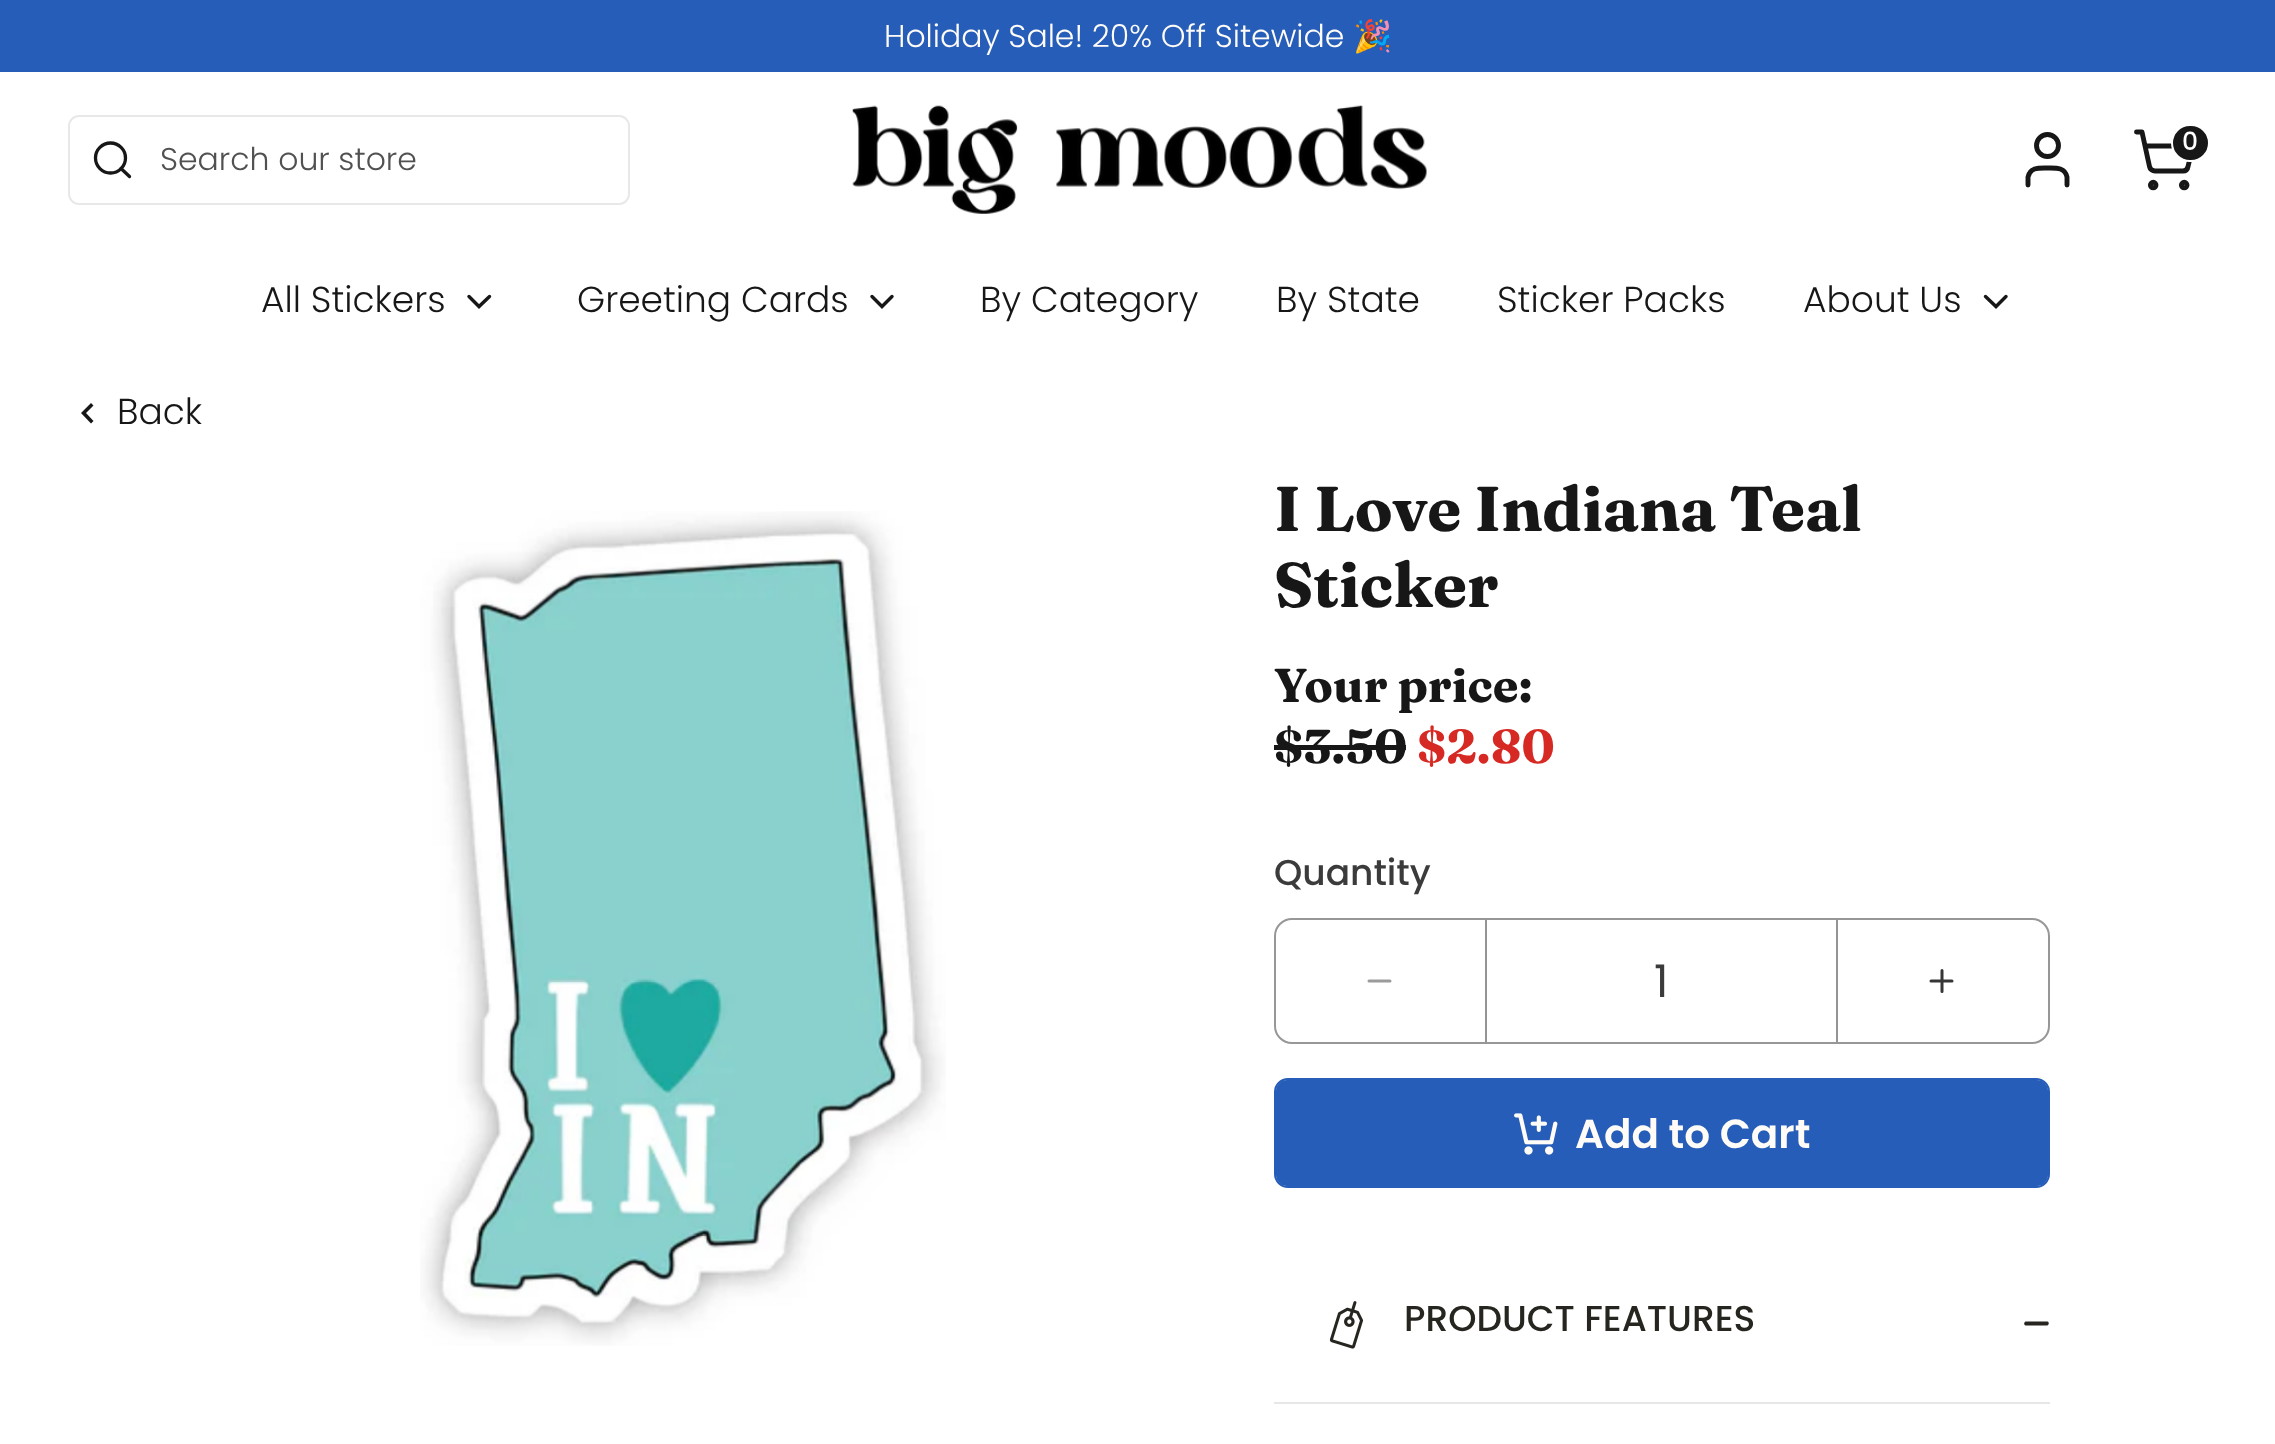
<svg xmlns="http://www.w3.org/2000/svg" width="2275" height="1444">
	<rect width="100%" height="100%" fill="#FFFFFF" />
	<rect x="0" y="0" width="2275" height="72" fill="#265DB8" />
	<text x="884" y="47" font-family="Poppins" font-size="31.5" font-weight="300" fill="#FFFCF8">Holiday Sale! 20% Off Sitewide</text>
	<text x="1353" y="47" font-family="Noto Color Emoji" font-size="31.5" fill="#FFFCF8">🎉</text>
	<image x="852" y="105" width="575" height="109" href="assets/img1.png" />
	<path d="M2067 185V177C2065 167 2055.5 168 2047.5 168C2039.5 168 2030 167 2028 177V185" fill="none" stroke="#171717" stroke-width="4.9" stroke-linecap="round" stroke-linejoin="round" />
	<circle cx="2047.5" cy="145.5" r="11" fill="none" stroke="#171717" stroke-width="4.9" />
	<circle cx="2153.2" cy="185.1" r="2.8" fill="none" stroke="#171717" stroke-width="4.9" />
	<circle cx="2184.2" cy="185.1" r="2.8" fill="none" stroke="#171717" stroke-width="4.9" />
	<path d="M2136.5 132H2142L2149.5 166.5C2150 169.5 2152.5 171 2155 171H2183C2185.5 171 2187.5 169.5 2188 166.5L2193 146H2145" fill="none" stroke="#171717" stroke-width="4.9" stroke-linecap="round" stroke-linejoin="round" />
	<rect x="2172" y="125" width="37" height="36" rx="18" fill="#171717" stroke="#FFFFFF" stroke-width="2" />
	<text x="2182" y="150" font-family="Poppins" font-size="25" font-weight="500" fill="#FFFFFF">0</text>
	<rect x="69" y="116" width="560" height="88" rx="10" fill="none" stroke="#E8E8E8" stroke-width="2" />
	<circle cx="110.5" cy="158" r="15" fill="none" stroke="#171717" stroke-width="3.3" />
	<path d="M129.5 176.5L121 168.5" fill="none" stroke="#171717" stroke-width="3.3" stroke-linecap="round" stroke-linejoin="round" />
	<text x="160" y="170" font-family="Poppins" font-size="31.5" font-weight="300" fill="#515151">Search our store</text>
	<text x="261" y="312" font-family="Poppins" font-size="36" font-weight="300" fill="#171717">All Stickers</text>
	<path d="M469 296.5L479 306.5L489.5 296.5" fill="none" stroke="#171717" stroke-width="3.4" stroke-linecap="round" />
	<text x="577" y="312" font-family="Poppins" font-size="36" font-weight="300" fill="#171717">Greeting Cards</text>
	<path d="M872 296.5L882 306.5L892 296.5" fill="none" stroke="#171717" stroke-width="3.4" stroke-linecap="round" />
	<g font-family="Poppins" font-size="36" font-weight="300" fill="#171717">
		<text x="980" y="312">By Category</text>
		<text x="1276" y="312">By State</text>
		<text x="1497" y="312">Sticker Packs</text>
		<text x="1803" y="312">About Us</text>
	</g>
	<path d="M1985.5 296.5L1996 306.5L2006 296.5" fill="none" stroke="#171717" stroke-width="3.4" stroke-linecap="round" />
	<path d="M93.5 421L86 413L93.5 405.5L91 403L81 413L91 423.5Z" fill="#171717" />
	<text x="117" y="424" font-family="Poppins" font-size="36" font-weight="300" fill="#171717">Back</text>
	<image x="420" y="511" width="526" height="835" href="assets/img2.png" />
	<g font-family="Fraunces" font-size="63.1" font-weight="700" fill="#171717">
		<text x="1274" y="531">I Love Indiana Teal</text>
		<text x="1274" y="607">Sticker</text>
	</g>
	<g font-family="'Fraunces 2'" font-size="47.5" font-weight="700" fill="#171717">
		<text x="1274" y="702">Your price:</text>
		<text x="1274" y="763">$3.50</text>
	</g>
	<rect x="1274" y="745" width="132" height="5" fill="#171717" />
	<text x="1417" y="763" font-family="'Fraunces 2'" font-size="47.5" font-weight="700" fill="#D72923">$2.80</text>
	<text x="1274" y="885" font-family="Poppins" font-size="36" font-weight="500" fill="#3B3B3B">Quantity</text>
	<rect x="1275" y="919" width="774" height="124" rx="17" fill="none" stroke="#979797" stroke-width="2" />
	<path d="M1369 981H1390" fill="none" stroke="#9B9B9B" stroke-width="3" stroke-linecap="round" />
	<rect x="1836" y="920" width="2" height="122" fill="#949494" />
	<rect x="1485" y="920" width="2" height="122" fill="#949494" />
	<text x="1654" y="997" font-family="Poppins" font-size="45" fill="#3B3B3B">1</text>
	<path d="M1942 970.5V991.5M1931 981H1952" fill="none" stroke="#363636" stroke-width="3" stroke-linecap="round" />
	<rect x="1275" y="1079" width="774" height="108" rx="13" fill="none" stroke="#265DB8" stroke-width="2" />
	<rect x="1276" y="1080" width="772" height="106" rx="11" fill="#265DB8" />
	<image x="1514" y="1113" width="44" height="42" href="assets/img3.png" />
	<text x="1575" y="1148" font-family="Poppins" font-size="40.5" font-weight="600" fill="#FFFCF8">Add to Cart</text>
	<rect x="1274" y="1402" width="776" height="2" fill="#E7E7E7" />
	<image x="1329" y="1301" width="35" height="48" href="assets/img4.png" />
	<text x="1404" y="1331" font-family="Poppins" font-size="36" font-weight="500" fill="#27251F">PRODUCT FEATURES</text>
	<path d="M2047 1325.5H2025.5C2024 1325 2023.5 1322.5 2025.5 1321.5H2047.5C2049.5 1322 2049 1325.5 2047 1325.5Z" fill="#27251F" />
</svg>
